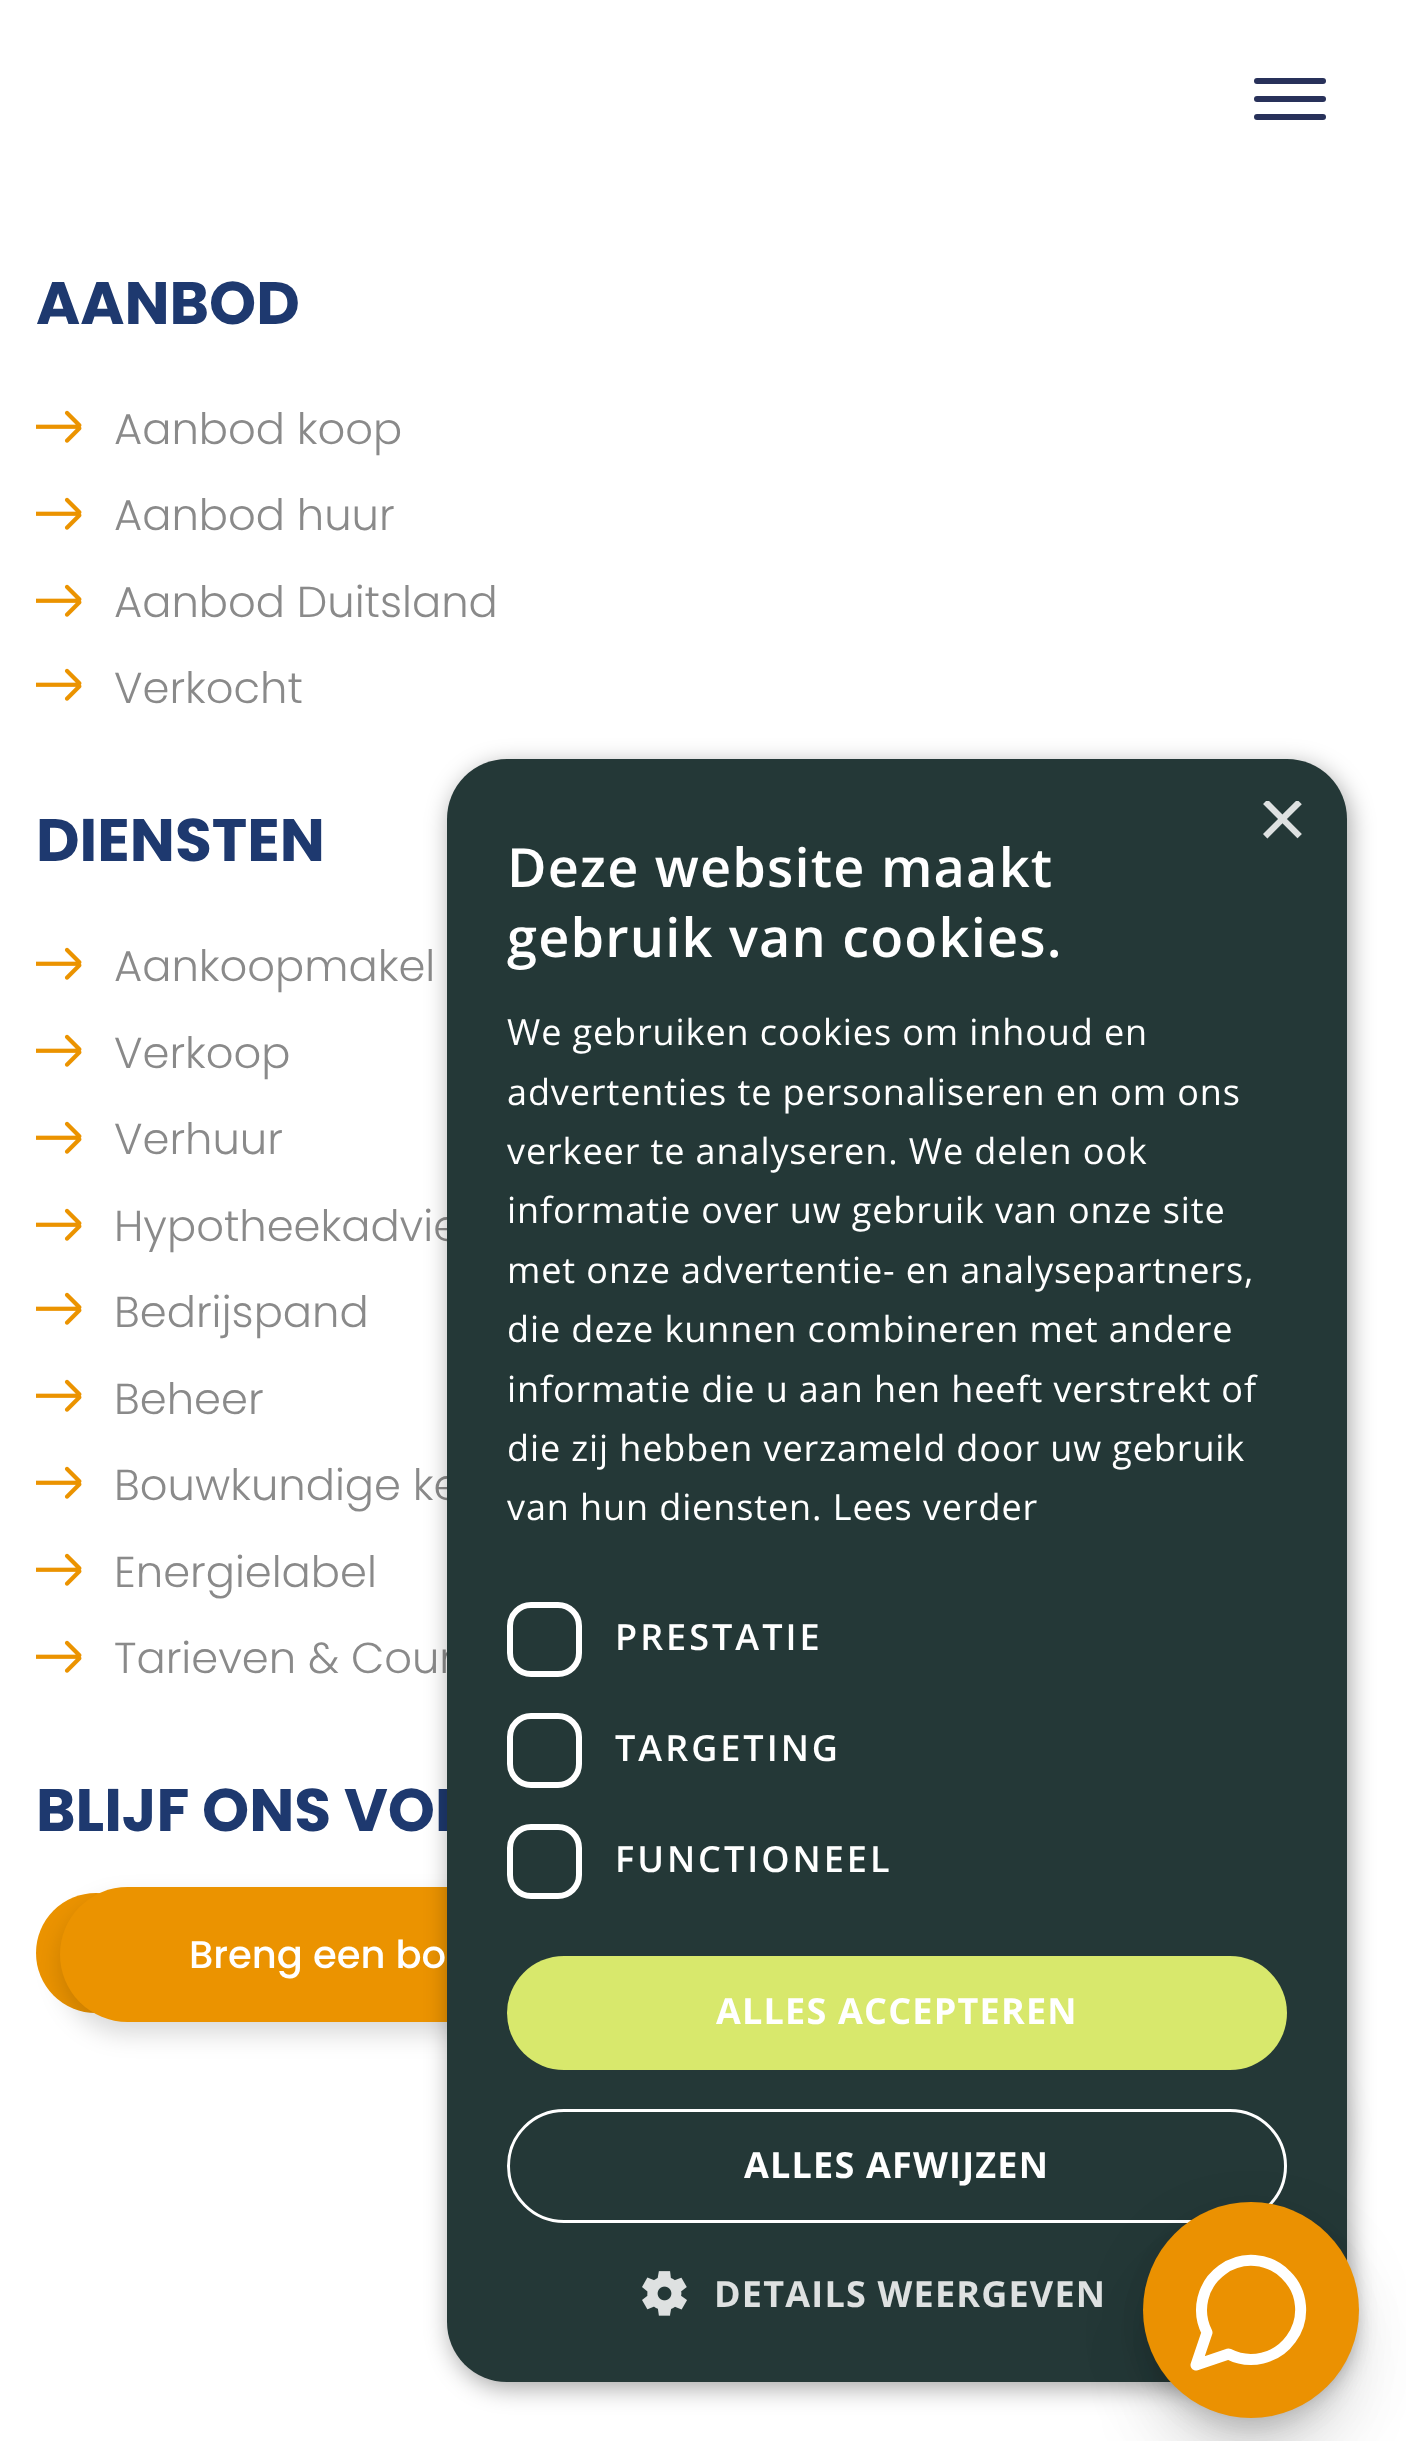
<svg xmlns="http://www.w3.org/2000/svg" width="1406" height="2441">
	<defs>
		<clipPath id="clip1"><rect x="1257" y="801" width="45" height="45" /></clipPath>
	</defs>
	<rect width="100%" height="100%" fill="#FFFFFF" />
	<rect x="1254" y="78" width="72" height="6" rx="3" fill="#28315A" />
	<rect x="1254" y="96" width="72" height="6" rx="3" fill="#28315A" />
	<rect x="1254" y="114" width="72" height="6" rx="3" fill="#28315A" />
	<text x="36" y="324" font-family="Poppins" font-size="60" font-weight="700" fill="#1E396F">AANBOD</text>
	<image x="36" y="410" width="46" height="33" href="assets/img1.png" />
	<text x="114" y="444" font-family="Poppins" font-size="43.25" font-weight="300" fill="#8A8A8A">Aanbod koop</text>
	<image x="36" y="497" width="46" height="33" href="assets/img1.png" />
	<text x="114" y="530" font-family="Poppins" font-size="43.25" font-weight="300" fill="#8A8A8A">Aanbod huur</text>
	<image x="36" y="584" width="46" height="33" href="assets/img1.png" />
	<text x="114" y="617" font-family="Poppins" font-size="43.25" font-weight="300" fill="#8A8A8A">Aanbod Duitsland</text>
	<image x="36" y="668" width="46" height="33" href="assets/img1.png" />
	<text x="114" y="703" font-family="Poppins" font-size="43.25" font-weight="300" fill="#8A8A8A">Verkocht</text>
	<text x="36" y="861" font-family="Poppins" font-size="60" font-weight="700" fill="#1E396F">DIENSTEN</text>
	<image x="36" y="947" width="46" height="33" href="assets/img1.png" />
	<text x="114" y="981" font-family="Poppins" font-size="43.25" font-weight="300" fill="#8A8A8A">Aankoopmakel</text>
	<image x="36" y="1034" width="46" height="33" href="assets/img1.png" />
	<text x="114" y="1068" font-family="Poppins" font-size="43.25" font-weight="300" fill="#8A8A8A">Verkoop</text>
	<image x="36" y="1121" width="46" height="33" href="assets/img1.png" />
	<text x="114" y="1154" font-family="Poppins" font-size="43.25" font-weight="300" fill="#8A8A8A">Verhuur</text>
	<image x="36" y="1208" width="46" height="33" href="assets/img1.png" />
	<text x="114" y="1241" font-family="Poppins" font-size="43.25" font-weight="300" fill="#8A8A8A">Hypotheekadvie</text>
	<image x="36" y="1292" width="46" height="33" href="assets/img1.png" />
	<text x="114" y="1327" font-family="Poppins" font-size="43.25" font-weight="300" fill="#8A8A8A">Bedrijspand</text>
	<image x="36" y="1379" width="46" height="33" href="assets/img1.png" />
	<text x="114" y="1414" font-family="Poppins" font-size="43.25" font-weight="300" fill="#8A8A8A">Beheer</text>
	<image x="36" y="1466" width="46" height="33" href="assets/img1.png" />
	<text x="114" y="1500" font-family="Poppins" font-size="43.25" font-weight="300" fill="#8A8A8A">Bouwkundige ke</text>
	<image x="36" y="1553" width="46" height="33" href="assets/img1.png" />
	<text x="114" y="1587" font-family="Poppins" font-size="43.25" font-weight="300" fill="#8A8A8A">Energielabel</text>
	<image x="36" y="1640" width="46" height="33" href="assets/img1.png" />
	<text x="114" y="1673" font-family="Poppins" font-size="43.25" font-weight="300" fill="#8A8A8A">Tarieven &amp; Cour</text>
	<text x="36" y="1831" font-family="Poppins" font-size="60" font-weight="700" fill="#1E396F">BLIJF ONS VOL</text>
	<circle cx="96" cy="1953" r="60" fill="#EB9300" />
	<rect x="60" y="1899" width="600" height="135" rx="67.5" fill="#000000" fill-opacity="0.15" filter="blur(12px)" />
	<rect x="60" y="1887" width="600" height="135" rx="67.5" fill="#EB9300" />
	<rect x="450" y="765" width="900" height="1623" rx="60" fill="#000000" fill-opacity="0.35" filter="blur(12px)" />
	<rect x="1212" y="2070" width="120" height="120" rx="60" fill="#000000" fill-opacity="0.15" filter="blur(21px)" />
	<rect x="1212" y="2226" width="120" height="120" rx="60" fill="#000000" fill-opacity="0.15" filter="blur(21px)" />
	<rect x="447" y="759" width="900" height="1623" rx="60" fill="#243837" />
	<g clip-path="url(#clip1)">
		<text x="1257" y="848" font-family="Liberation Sans" font-size="87" fill="#DEE1E1">×</text>
	</g>
	<g font-family="Open Sans" font-size="54" font-weight="600" letter-spacing="1.2" fill="#FFFFFF">
		<text x="507" y="887">Deze website maakt</text>
		<text x="507" y="957">gebruik van cookies.</text>
	</g>
	<g font-family="Open Sans" font-size="36" letter-spacing="0.9" fill="#FFFFFF">
		<text x="507" y="1045">We gebruiken cookies om inhoud en</text>
		<text x="507" y="1105">advertenties te personaliseren en om ons</text>
		<text x="507" y="1164">verkeer te analyseren. We delen ook</text>
		<text x="507" y="1223">informatie over uw gebruik van onze site</text>
		<text x="507" y="1283">met onze advertentie- en analysepartners,</text>
		<text x="507" y="1342">die deze kunnen combineren met andere</text>
		<text x="507" y="1402">informatie die u aan hen heeft verstrekt of</text>
		<text x="507" y="1461">die zij hebben verzameld door uw gebruik</text>
		<text x="507" y="1520">van hun diensten. Lees verder</text>
	</g>
	<rect x="510" y="1605" width="69" height="69" rx="21" fill="none" stroke="#FFFFFF" stroke-width="6" />
	<text x="615" y="1650" font-family="Open Sans" font-size="36" font-weight="600" letter-spacing="3" fill="#FFFFFF">PRESTATIE</text>
	<rect x="510" y="1716" width="69" height="69" rx="21" fill="none" stroke="#FFFFFF" stroke-width="6" />
	<text x="615" y="1761" font-family="Open Sans" font-size="36" font-weight="600" letter-spacing="3" fill="#FFFFFF">TARGETING</text>
	<rect x="510" y="1827" width="69" height="69" rx="21" fill="none" stroke="#FFFFFF" stroke-width="6" />
	<text x="615" y="1872" font-family="Open Sans" font-size="36" font-weight="600" letter-spacing="3" fill="#FFFFFF">FUNCTIONEEL</text>
	<rect x="507" y="1956" width="780" height="114" rx="57" fill="#D8E86C" />
	<text x="716" y="2024" font-family="Open Sans" font-size="36" font-weight="700" letter-spacing="1.2" fill="#FFFFFF">ALLES ACCEPTEREN</text>
	<rect x="508.5" y="2110.5" width="777" height="111" rx="55.5" fill="none" stroke="#FFFFFF" stroke-width="3" />
	<text x="744" y="2178" font-family="Open Sans" font-size="36" font-weight="700" letter-spacing="1.2" fill="#FFFFFF">ALLES AFWIJZEN</text>
	<image x="642" y="2271" width="45" height="45" href="assets/img2.png" />
	<text x="714" y="2307" font-family="Open Sans" font-size="36" font-weight="700" letter-spacing="1.2" fill="#DEE1E1">DETAILS WEERGEVEN</text>
	<text x="189" y="1968" font-family="Poppins" font-size="38.5" font-weight="500" fill="#FFFFFF">Breng een bo</text>
	<rect x="1161" y="2244" width="180" height="180" rx="90" fill="#000000" fill-opacity="0.1" filter="blur(15px)" />
	<rect x="1158" y="2277" width="186" height="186" rx="93" fill="#000000" fill-opacity="0.1" filter="blur(37.5px)" />
	<rect x="1152" y="2223" width="198" height="198" rx="99" fill="#000000" fill-opacity="0.1" filter="blur(15px)" />
	<rect x="1158" y="2241" width="186" height="186" rx="93" fill="#000000" fill-opacity="0.15" filter="blur(37.5px)" />
	<circle cx="1251" cy="2310" r="108" fill="#EB9101" />
	<path d="M1228.5 2354C1250 2365 1276.5 2359 1291 2339C1305.5 2319.5 1303.5 2292 1286 2275C1269 2257.5 1241.5 2255.5 1222 2270C1202 2284.5 1196 2311 1207 2332.5L1196 2365Z" fill="none" stroke="#FFFFFF" stroke-width="11" stroke-linecap="round" stroke-linejoin="round" />
</svg>
